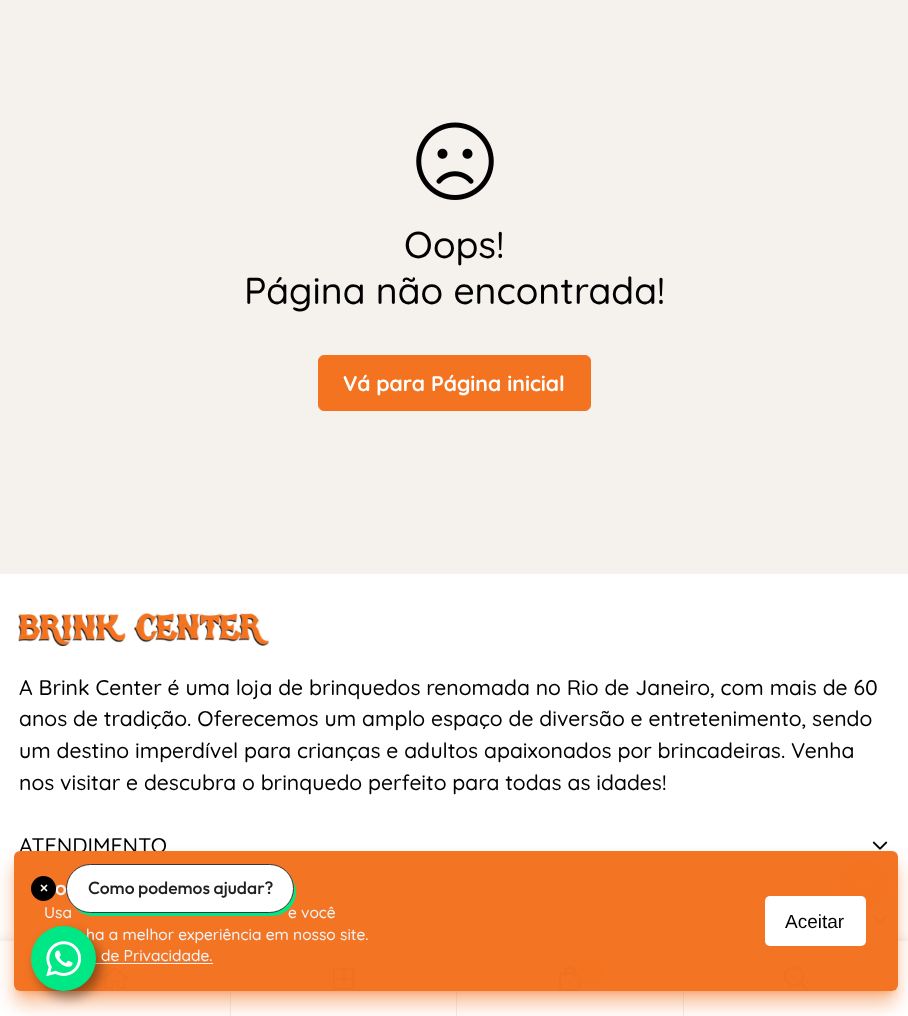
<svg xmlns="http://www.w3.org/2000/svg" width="908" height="1016">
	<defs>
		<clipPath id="clip1"><path d="M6 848H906V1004H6ZM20 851H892C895.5 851 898 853.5 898 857V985C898 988.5 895.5 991 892 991H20C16.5 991 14 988.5 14 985V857C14 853.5 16.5 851 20 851Z" clip-rule="evenodd" /></clipPath>
		<clipPath id="clip2"><path d="M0 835H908V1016H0ZM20 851H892C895.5 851 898 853.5 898 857V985C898 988.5 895.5 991 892 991H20C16.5 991 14 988.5 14 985V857C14 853.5 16.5 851 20 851Z" clip-rule="evenodd" /></clipPath>
	</defs>
	<rect width="100%" height="100%" fill="#FFFFFF" />
	<rect x="0" y="0" width="908" height="574" fill="#F5F1ED" />
	<image x="416" y="122" width="78" height="78" href="assets/img1.png" />
	<g font-family="Quicksand" font-size="37.5" font-weight="500" fill="#000000">
		<text x="404" y="258">Oops!</text>
		<text x="244" y="304">Página não encontrada!</text>
	</g>
	<rect x="318.5" y="355.5" width="272" height="55" rx="5.5" fill="#F37321" stroke="#F37321" />
	<text x="343" y="391" font-family="Quicksand" font-size="21.25" font-weight="700" fill="#FFFFFF">Vá para Página inicial</text>
	<image x="18" y="613" width="251" height="33" href="assets/img2.png" />
	<g font-family="Quicksand" font-size="21.25" font-weight="500" fill="#000000">
		<text x="19" y="695">A Brink Center é uma loja de brinquedos renomada no Rio de Janeiro, com mais de 60</text>
		<text x="19" y="726">anos de tradição. Oferecemos um amplo espaço de diversão e entretenimento, sendo</text>
		<text x="19" y="758">um destino imperdível para crianças e adultos apaixonados por brincadeiras. Venha</text>
		<text x="19" y="790">nos visitar e descubra o brinquedo perfeito para todas as idades!</text>
		<text x="19" y="853">ATENDIMENTO</text>
	</g>
	<image x="872" y="841" width="16" height="9" href="assets/img3.png" />
	<image x="872" y="915" width="16" height="9" href="assets/img4.png" />
	<circle cx="864" cy="884" r="24.5" fill="#F37321" stroke="#F37321" />
	<image x="856" y="876" width="16" height="16" href="assets/img6.png" />
	<rect x="0" y="941" width="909" height="75" fill="#000000" fill-opacity="0.12" filter="blur(6px)" />
	<rect x="0" y="941" width="908" height="75" fill="#FFFFFF" />
	<rect x="230" y="941" width="1" height="75" fill="#EEEEEE" />
	<image x="101" y="967" width="28" height="23" href="assets/img7.png" />
	<rect x="456" y="941" width="1" height="75" fill="#EEEEEE" />
	<image x="332" y="967" width="23" height="23" href="assets/img8.png" />
	<rect x="683" y="941" width="1" height="75" fill="#EEEEEE" />
	<image x="559" y="966" width="22" height="25" href="assets/img9.png" />
	<circle cx="591.5" cy="971.5" r="13.5" fill="#F37321" />
	<image x="784" y="966" width="25" height="25" href="assets/img10.png" />
	<g clip-path="url(#clip1)">
		<rect x="19" y="861" width="874" height="130" rx="1" fill="#F37321" fill-opacity="0.5" filter="blur(4px)" />
	</g>
	<g clip-path="url(#clip2)">
		<rect x="15" y="865" width="881" height="138" rx="5" fill="#F37321" fill-opacity="0.5" filter="blur(9.5px)" />
	</g>
	<rect x="14" y="851" width="884" height="140" rx="6" fill="#F37321" fill-opacity="0.99" />
	<text x="55" y="895" font-family="Quicksand" font-size="19" font-weight="700" fill="#F1F5F9">o</text>
	<circle cx="43.5" cy="888.5" r="12.5" fill="#000000" />
	<path d="M41 885L47 891M41 891L47 885" fill="none" stroke="#FFFFFF" stroke-width="1.7" />
	<rect x="95" y="963" width="118" height="1" fill="#F1F5F9" />
	<rect x="36" y="933" width="65" height="65" rx="32.5" fill="#000000" fill-opacity="0.4" filter="blur(6px)" />
	<text x="288" y="918" font-family="Quicksand" font-size="15.6" font-weight="500" fill="#F1F5F9">e você</text>
	<path d="M72 904C77 911 84 916 93 916H272C285 916 296 905 296 892C296 887 294 882 292 878C293 881 294 885 294 888C294 902 283 912 269 912H91C83 912 77 909 72 904Z" fill="#00E785" />
	<text x="44" y="918" font-family="Quicksand" font-size="15.6" font-weight="500" fill="#F1F5F9">Usa</text>
	<rect x="66.5" y="864.5" width="227" height="48" rx="24" fill="#FFFFFF" stroke="#363636" />
	<text x="88" y="894" font-family="Outfit" font-size="17.5" font-weight="500" fill="#202020">Como podemos ajudar?</text>
	<text x="86" y="940" font-family="Quicksand" font-size="15.6" font-weight="500" fill="#F1F5F9">ha a melhor experiência em nosso site.</text>
	<circle cx="63.5" cy="958.5" r="32.5" fill="#00E785" />
	<image x="46" y="941" width="35" height="35" href="assets/img5.png" />
	<text x="101" y="961" font-family="Quicksand" font-size="15.6" font-weight="500" fill="#F1F5F9">de Privacidade.</text>
	<rect x="765" y="896" width="101" height="50" rx="5" fill="#FFFFFF" />
	<text x="785" y="928" font-family="Liberation Sans" font-size="19" fill="#000000">Aceitar</text>
</svg>
